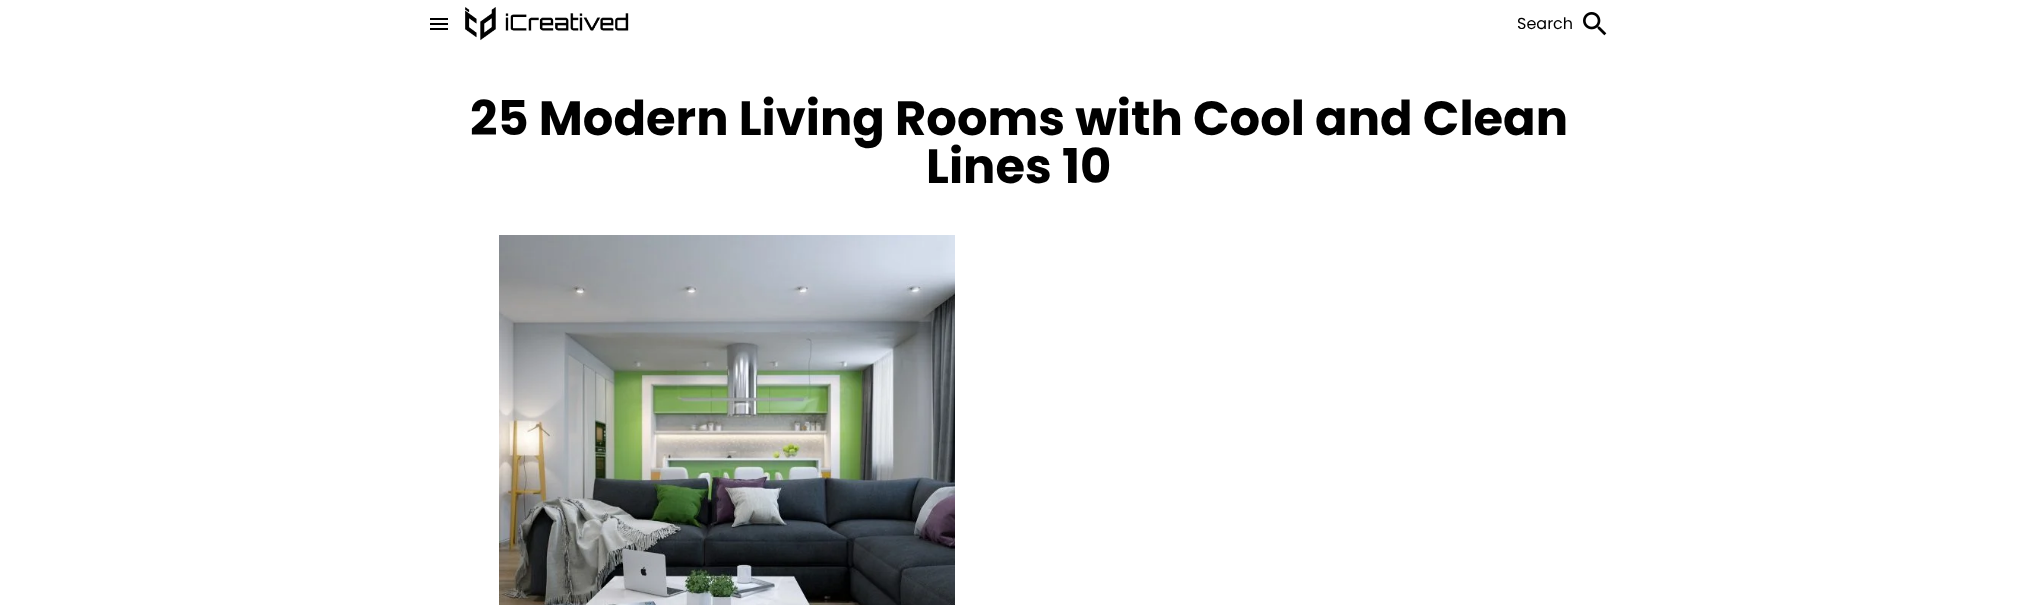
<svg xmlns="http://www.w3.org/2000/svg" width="2038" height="605">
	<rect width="100%" height="100%" fill="#FFFFFF" />
	<image x="430" y="18" width="18" height="12" href="assets/img1.png" />
	<image x="465" y="7" width="164" height="34" href="assets/img2.png" />
	<text x="1517" y="29" font-family="Poppins" font-size="16" fill="#000000">Search</text>
	<image x="1583" y="12" width="24" height="24" href="assets/img3.png" />
	<g font-family="Poppins" font-size="48" font-weight="700" fill="#000000">
		<text x="470" y="135">25 Modern Living Rooms with Cool and Clean</text>
		<text x="926" y="183">Lines 10</text>
	</g>
	<image x="499" y="235" width="456" height="370" href="assets/img4.png" />
</svg>
